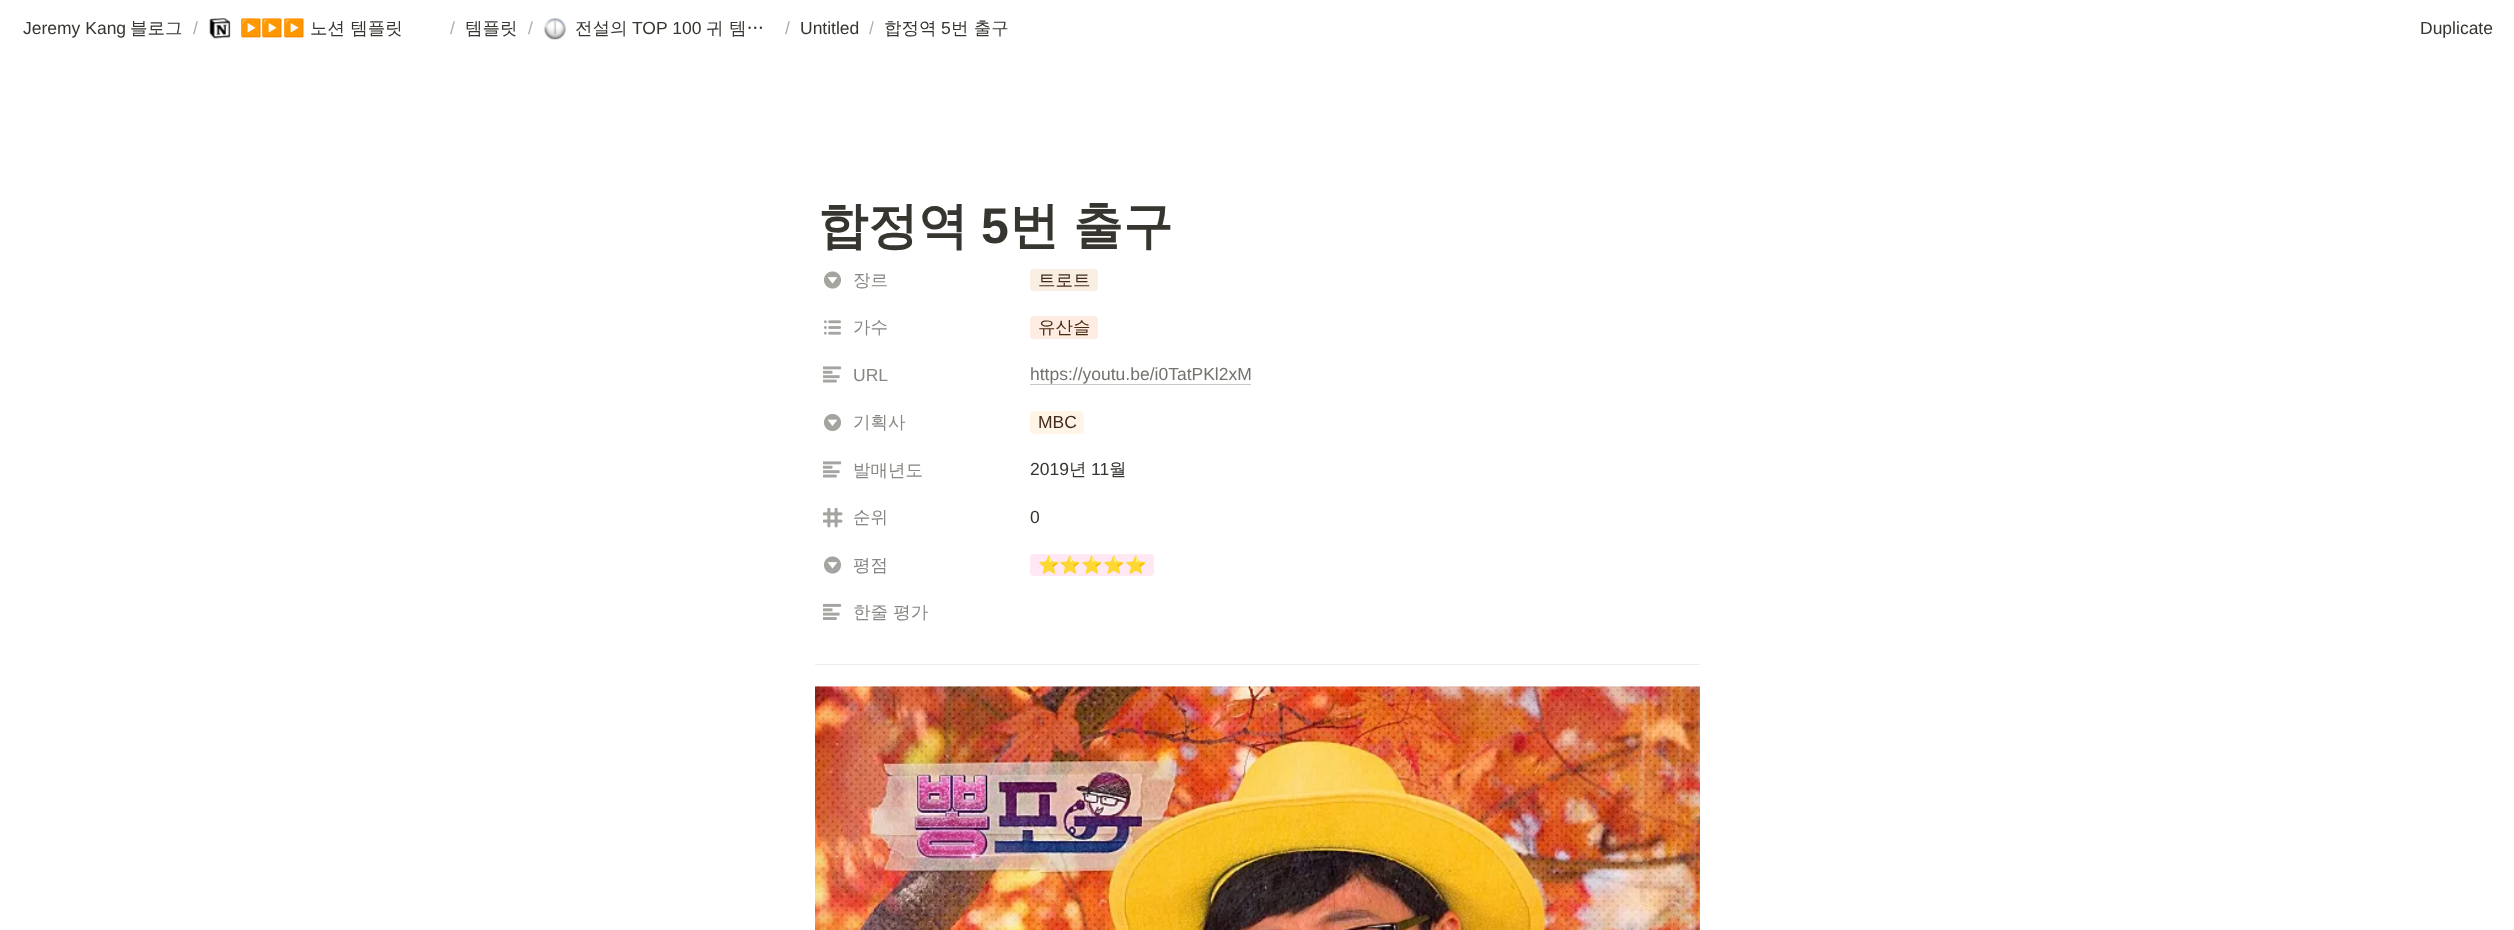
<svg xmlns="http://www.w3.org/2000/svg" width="2514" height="930">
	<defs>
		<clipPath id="clip1"><rect x="1038" y="555" width="108" height="20" /></clipPath>
	</defs>
	<rect width="100%" height="100%" fill="#FFFFFF" />
	<text x="23" y="34" font-family="Liberation Sans" font-size="17.5" fill="#37352F">Jeremy Kang</text>
	<text x="130" y="34" font-family="WenQuanYi Zen Hei" font-size="17.5" font-weight="500" fill="#37352F">블로그</text>
	<text x="193" y="34" font-family="Liberation Sans" font-size="17.5" fill="#AFAEAC">/</text>
	<image x="209" y="18" width="22" height="21" href="assets/img1.png" />
	<text x="240" y="34" font-family="Noto Color Emoji" font-size="17.5" fill="#37352F">▶️▶️▶️</text>
	<text x="310" y="34" font-family="WenQuanYi Zen Hei" font-size="17.5" font-weight="500" fill="#37352F">노션 템플릿</text>
	<text x="450" y="34" font-family="Liberation Sans" font-size="17.5" fill="#AFAEAC">/</text>
	<text x="465" y="34" font-family="WenQuanYi Zen Hei" font-size="17.5" font-weight="500" fill="#37352F">템플릿</text>
	<text x="528" y="34" font-family="Liberation Sans" font-size="17.5" fill="#AFAEAC">/</text>
	<image x="543" y="18" width="23" height="22" href="assets/img2.png" />
	<text x="575" y="34" font-family="WenQuanYi Zen Hei" font-size="17.5" font-weight="500" fill="#37352F">전설의</text>
	<text x="632" y="34" font-family="Liberation Sans" font-size="17.5" fill="#37352F">TOP 100</text>
	<g font-family="WenQuanYi Zen Hei" font-size="17.5" font-weight="500" fill="#37352F">
		<text x="706" y="34">귀</text>
		<text x="729" y="34">템…</text>
	</g>
	<text x="785" y="34" font-family="Liberation Sans" font-size="17.5" fill="#AFAEAC">/</text>
	<text x="800" y="34" font-family="Liberation Sans" font-size="17.5" fill="#37352F">Untitled</text>
	<text x="869" y="34" font-family="Liberation Sans" font-size="17.5" fill="#AFAEAC">/</text>
	<text x="884" y="34" font-family="WenQuanYi Zen Hei" font-size="17.5" font-weight="500" fill="#37352F">합정역</text>
	<text x="941" y="34" font-family="Liberation Sans" font-size="17.5" fill="#37352F">5</text>
	<text x="951" y="34" font-family="WenQuanYi Zen Hei" font-size="17.5" font-weight="500" fill="#37352F">번 출구</text>
	<text x="2420" y="34" font-family="Liberation Sans" font-size="17.5" fill="#37352F">Duplicate</text>
	<text x="818" y="243" font-family="WenQuanYi Zen Hei" font-size="50" font-weight="700" fill="#37352F">합정역</text>
	<text x="981" y="243" font-family="Liberation Sans" font-size="50" font-weight="700" fill="#37352F">5</text>
	<text x="1009" y="243" word-spacing="-1" font-family="WenQuanYi Zen Hei" font-size="50" font-weight="700" fill="#37352F">번 출구</text>
	<image x="824" y="271" width="17" height="18" href="assets/img3.png" />
	<text x="853" y="286" font-family="WenQuanYi Zen Hei" font-size="17.5" font-weight="500" fill="#878682">장르</text>
	<rect x="1030" y="269" width="68" height="22" rx="4" fill="#F9EEE2" />
	<text x="1038" y="286" font-family="WenQuanYi Zen Hei" font-size="17.5" font-weight="500" fill="#442A1E">트로트</text>
	<image x="824" y="320" width="17" height="15" href="assets/img4.png" />
	<text x="853" y="333" font-family="WenQuanYi Zen Hei" font-size="17.5" font-weight="500" fill="#878682">가수</text>
	<rect x="1030" y="316" width="68" height="23" rx="4" fill="#FEEBE1" />
	<text x="1038" y="333" font-family="WenQuanYi Zen Hei" font-size="17.5" font-weight="500" fill="#49290E">유산슬</text>
	<image x="823" y="366" width="19" height="17" href="assets/img5.png" />
	<text x="853" y="381" font-family="Liberation Sans" font-size="17.5" fill="#878682">URL</text>
	<text x="1030" y="380" font-family="Liberation Sans" font-size="17.5" fill="#73726D">https://youtu.be/i0TatPKl2xM</text>
	<rect x="1030" y="384" width="221" height="1" fill="#C7C7C5" />
	<image x="824" y="413" width="17" height="18" href="assets/img6.png" />
	<text x="853" y="428" font-family="WenQuanYi Zen Hei" font-size="17.5" font-weight="500" fill="#878682">기획사</text>
	<rect x="1030" y="411" width="54" height="23" rx="4" fill="#FEF5E6" />
	<text x="1038" y="428" font-family="Liberation Sans" font-size="17.5" fill="#442A1E">MBC</text>
	<image x="823" y="461" width="19" height="17" href="assets/img5.png" />
	<text x="853" y="476" font-family="WenQuanYi Zen Hei" font-size="17.5" font-weight="500" fill="#878682">발매년도</text>
	<text x="1030" y="475" font-family="Liberation Sans" font-size="17.5" fill="#37352F">2019</text>
	<text x="1069" y="475" font-family="WenQuanYi Zen Hei" font-size="17.5" font-weight="500" fill="#37352F">년</text>
	<text x="1091" y="475" font-family="Liberation Sans" font-size="17.5" fill="#37352F">11</text>
	<text x="1109" y="475" font-family="WenQuanYi Zen Hei" font-size="17.5" font-weight="500" fill="#37352F">월</text>
	<image x="823" y="508" width="20" height="20" href="assets/img7.png" />
	<text x="853" y="523" font-family="WenQuanYi Zen Hei" font-size="17.5" font-weight="500" fill="#878682">순위</text>
	<text x="1030" y="523" font-family="Liberation Sans" font-size="17.5" fill="#37352F">0</text>
	<image x="824" y="556" width="17" height="18" href="assets/img3.png" />
	<text x="853" y="571" font-family="WenQuanYi Zen Hei" font-size="17.5" font-weight="500" fill="#878682">평점</text>
	<rect x="1030" y="554" width="124" height="22" rx="4" fill="#FFE8F3" />
	<g clip-path="url(#clip1)">
		<text x="1038" y="571" font-family="Noto Color Emoji" font-size="17.5" fill="#4C2337">⭐⭐⭐⭐⭐</text>
	</g>
	<image x="823" y="603" width="19" height="17" href="assets/img8.png" />
	<text x="853" y="618" font-family="WenQuanYi Zen Hei" font-size="17.5" font-weight="500" fill="#878682">한줄 평가</text>
	<rect x="815" y="664" width="885" height="1" fill="#EDEDEC" />
	<image x="815" y="686" width="885" height="244" href="assets/img9.png" />
</svg>
